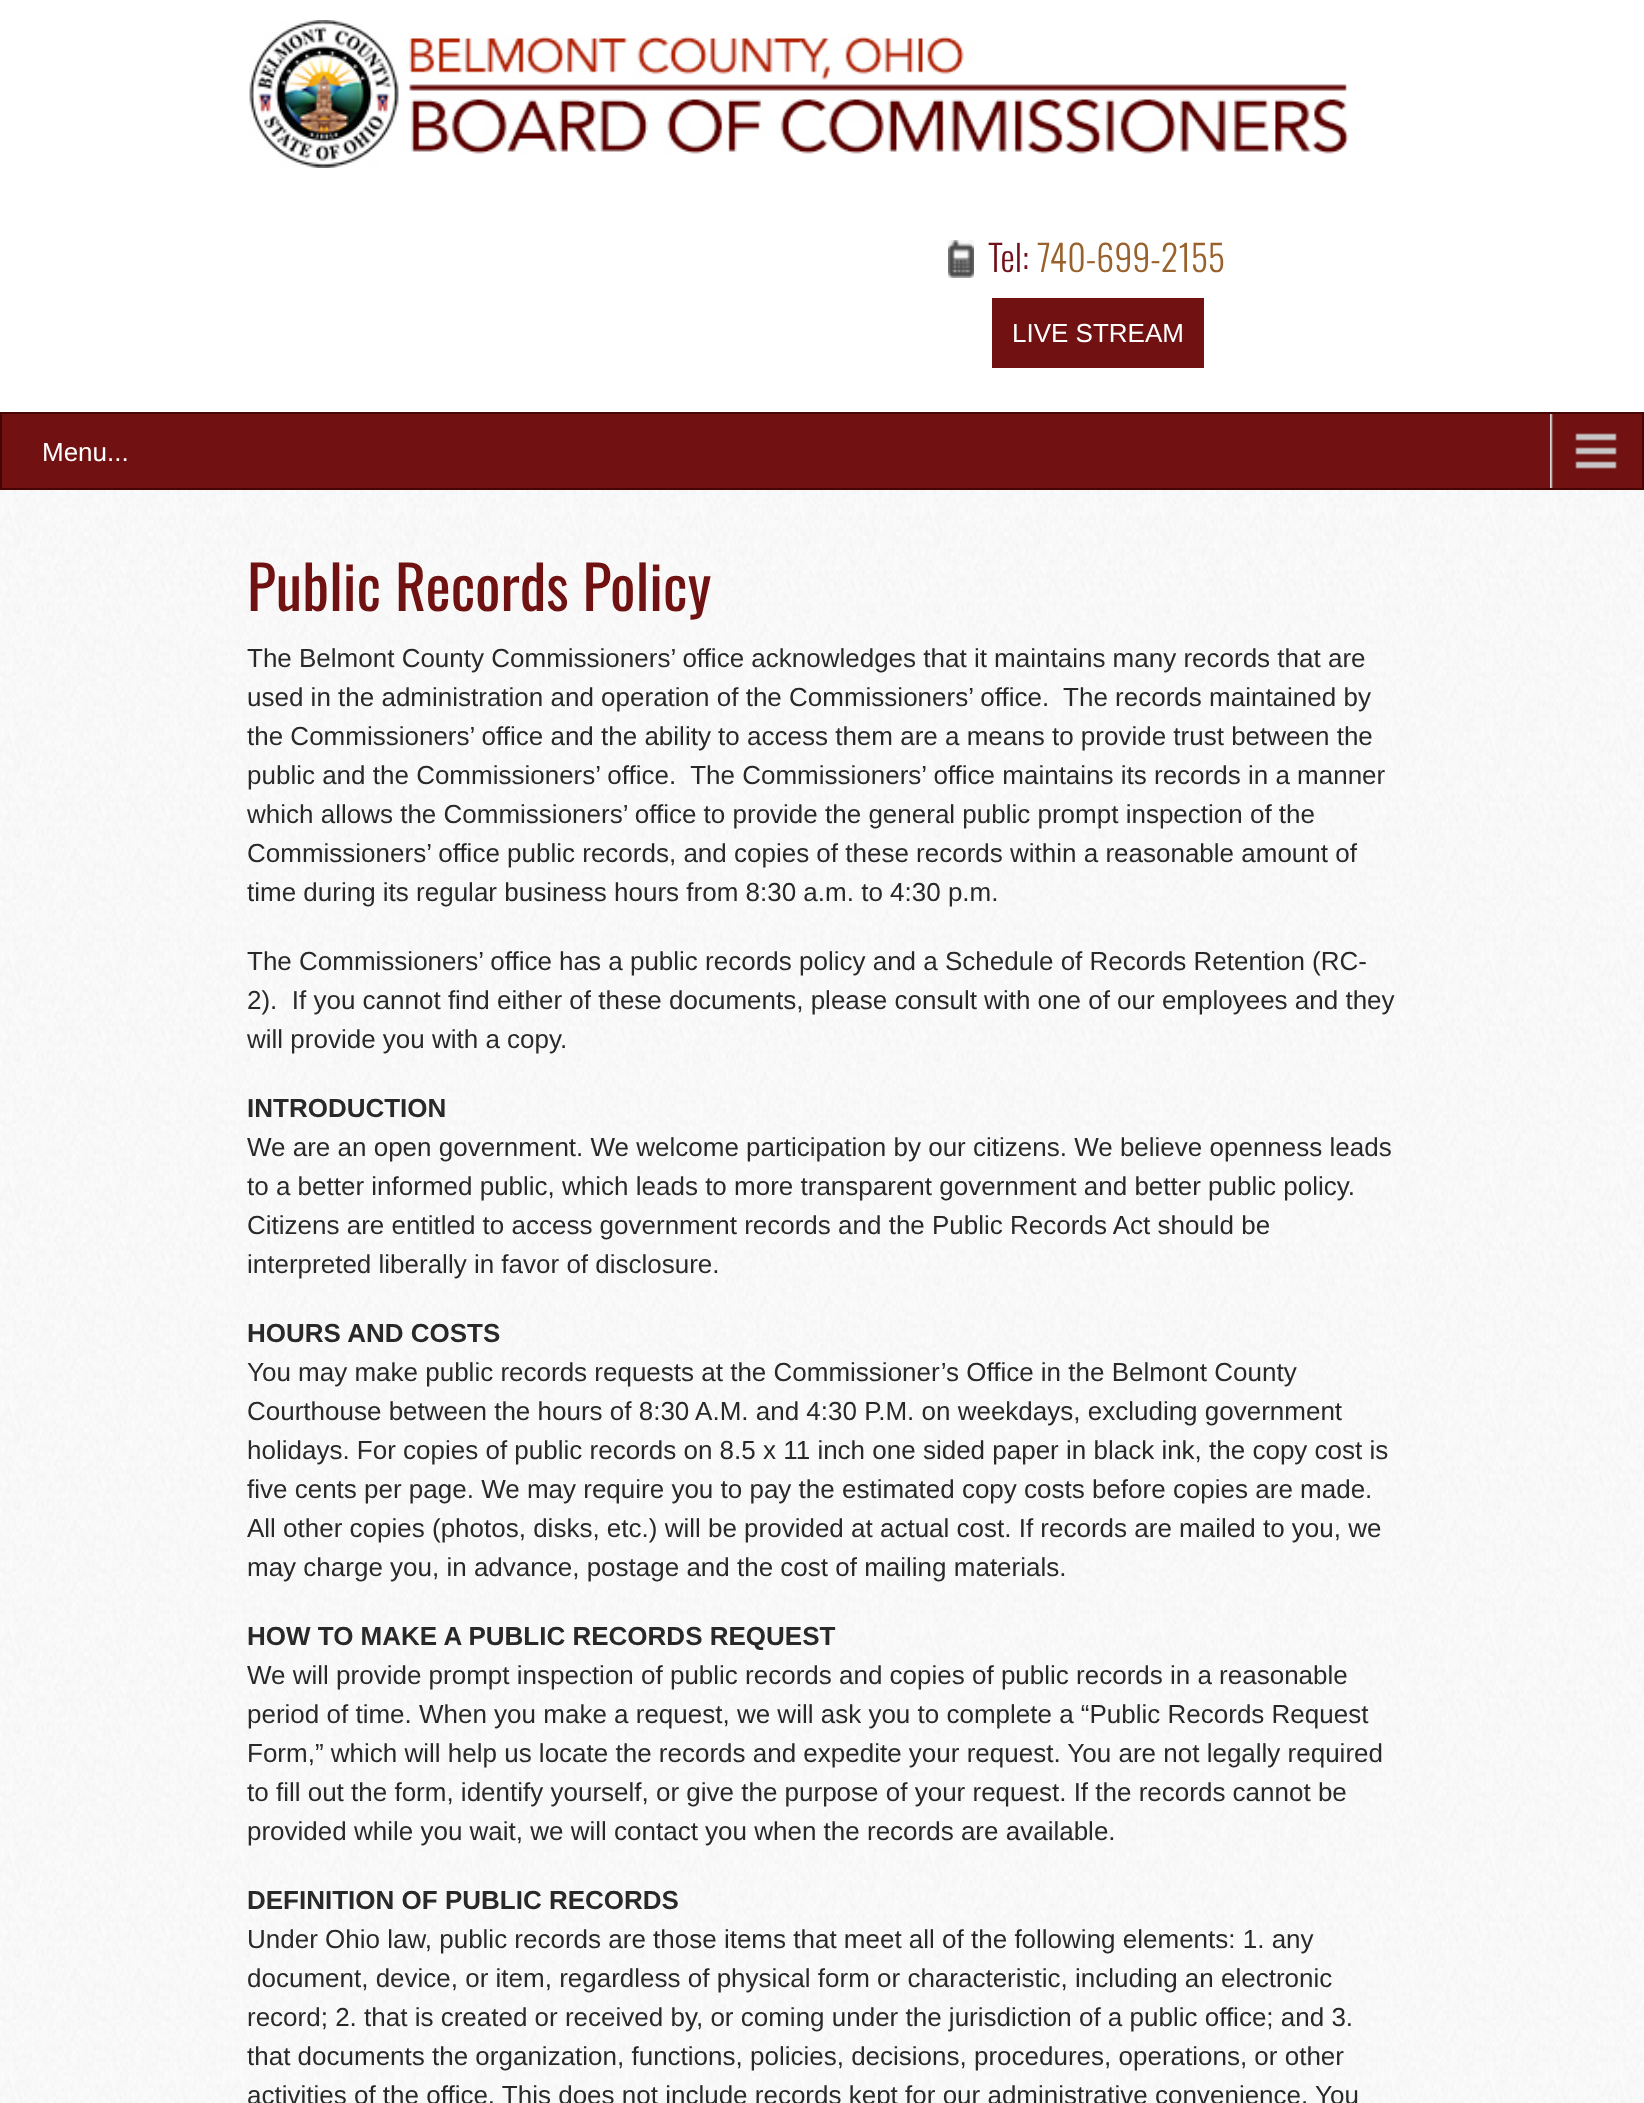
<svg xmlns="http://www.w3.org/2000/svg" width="1644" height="2103">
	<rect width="100%" height="100%" fill="#FFFFFF" />
	<image x="0" y="490" width="1644" height="1613" href="assets/img1.png" />
	<image x="249" y="20" width="1100" height="148" href="assets/img2.png" />
	<image x="948" y="240" width="26" height="38" href="assets/img3.png" />
	<text x="988" y="272" font-family="Oswald" font-size="36" font-weight="300" fill="#710F1B">Tel:</text>
	<text x="1037" y="272" font-family="Oswald" font-size="36" font-weight="300" fill="#99612B">740-699-2155</text>
	<rect x="992" y="298" width="212" height="70" fill="#711112" />
	<text x="1012" y="342" font-family="Liberation Sans" font-size="26" fill="#FFFFFF">LIVE STREAM</text>
	<rect x="2" y="414" width="1640" height="74" fill="#711112" />
	<image x="1550" y="414" width="67" height="74" href="assets/img4.png" />
	<rect x="1" y="413" width="1642" height="76" fill="none" stroke="#470506" stroke-width="2" />
	<text x="42" y="461" font-family="Liberation Sans" font-size="26" fill="#FFFFFF">Menu...</text>
	<text x="247" y="611" font-family="Oswald" font-size="60" fill="#701112">Public Records Policy</text>
	<g font-family="Liberation Sans" font-size="26" fill="#292929">
		<text x="247" y="667">The Belmont County Commissioners’ office acknowledges that it maintains many records that are</text>
		<text x="247" y="706" xml:space="preserve">used in the administration and operation of the Commissioners’ office.  The records maintained by</text>
		<text x="247" y="745">the Commissioners’ office and the ability to access them are a means to provide trust between the</text>
		<text x="247" y="784" xml:space="preserve">public and the Commissioners’ office.  The Commissioners’ office maintains its records in a manner</text>
		<text x="247" y="823">which allows the Commissioners’ office to provide the general public prompt inspection of the</text>
		<text x="247" y="862">Commissioners’ office public records, and copies of these records within a reasonable amount of</text>
		<text x="247" y="901">time during its regular business hours from 8:30 a.m. to 4:30 p.m.</text>
		<text x="247" y="970">The Commissioners’ office has a public records policy and a Schedule of Records Retention (RC-</text>
		<text x="247" y="1009" xml:space="preserve">2).  If you cannot find either of these documents, please consult with one of our employees and they</text>
		<text x="247" y="1048">will provide you with a copy.</text>
	</g>
	<text x="247" y="1117" font-family="Liberation Sans" font-size="26" font-weight="700" fill="#292929">INTRODUCTION</text>
	<g font-family="Liberation Sans" font-size="26" fill="#292929">
		<text x="247" y="1156">We are an open government. We welcome participation by our citizens. We believe openness leads</text>
		<text x="247" y="1195">to a better informed public, which leads to more transparent government and better public policy.</text>
		<text x="247" y="1234">Citizens are entitled to access government records and the Public Records Act should be</text>
		<text x="247" y="1273">interpreted liberally in favor of disclosure.</text>
	</g>
	<text x="247" y="1342" font-family="Liberation Sans" font-size="26" font-weight="700" fill="#292929">HOURS AND COSTS</text>
	<g font-family="Liberation Sans" font-size="26" fill="#292929">
		<text x="247" y="1381">You may make public records requests at the Commissioner’s Office in the Belmont County</text>
		<text x="247" y="1420">Courthouse between the hours of 8:30 A.M. and 4:30 P.M. on weekdays, excluding government</text>
		<text x="247" y="1459">holidays. For copies of public records on 8.5 x 11 inch one sided paper in black ink, the copy cost is</text>
		<text x="247" y="1498">five cents per page. We may require you to pay the estimated copy costs before copies are made.</text>
		<text x="247" y="1537">All other copies (photos, disks, etc.) will be provided at actual cost. If records are mailed to you, we</text>
		<text x="247" y="1576">may charge you, in advance, postage and the cost of mailing materials.</text>
	</g>
	<text x="247" y="1645" font-family="Liberation Sans" font-size="26" font-weight="700" fill="#292929">HOW TO MAKE A PUBLIC RECORDS REQUEST</text>
	<g font-family="Liberation Sans" font-size="26" fill="#292929">
		<text x="247" y="1684">We will provide prompt inspection of public records and copies of public records in a reasonable</text>
		<text x="247" y="1723">period of time. When you make a request, we will ask you to complete a “Public Records Request</text>
		<text x="247" y="1762">Form,” which will help us locate the records and expedite your request. You are not legally required</text>
		<text x="247" y="1801">to fill out the form, identify yourself, or give the purpose of your request. If the records cannot be</text>
		<text x="247" y="1840">provided while you wait, we will contact you when the records are available.</text>
	</g>
	<text x="247" y="1909" font-family="Liberation Sans" font-size="26" font-weight="700" fill="#292929">DEFINITION OF PUBLIC RECORDS</text>
	<g font-family="Liberation Sans" font-size="26" fill="#292929">
		<text x="247" y="1948">Under Ohio law, public records are those items that meet all of the following elements: 1. any</text>
		<text x="247" y="1987">document, device, or item, regardless of physical form or characteristic, including an electronic</text>
		<text x="247" y="2026">record; 2. that is created or received by, or coming under the jurisdiction of a public office; and 3.</text>
		<text x="247" y="2065">that documents the organization, functions, policies, decisions, procedures, operations, or other</text>
		<text x="247" y="2104">activities of the office. This does not include records kept for our administrative convenience. You</text>
	</g>
</svg>
